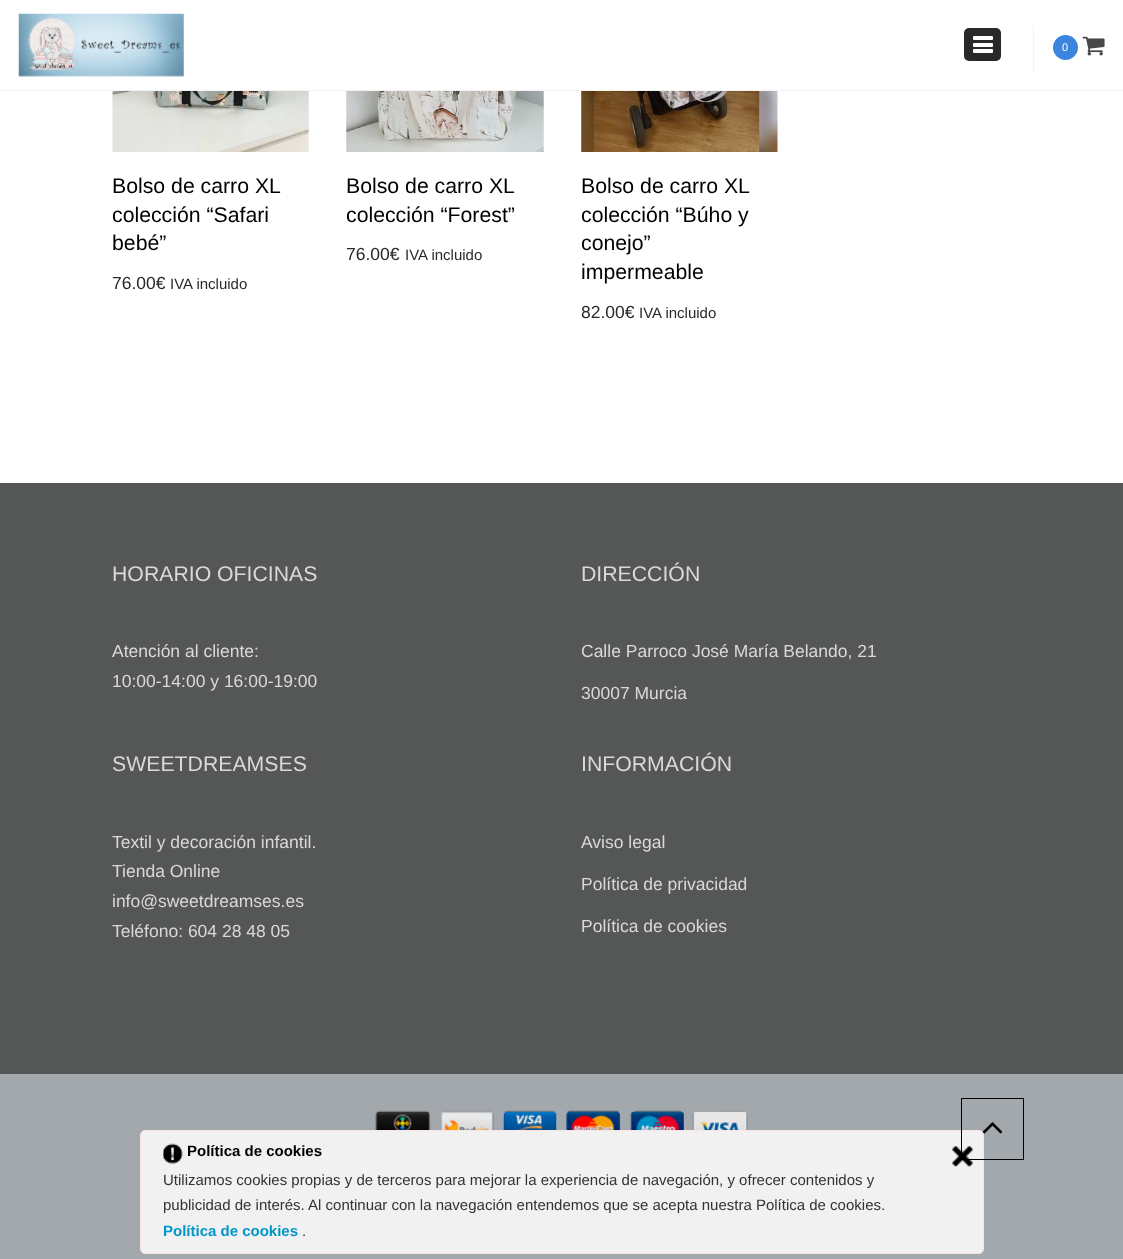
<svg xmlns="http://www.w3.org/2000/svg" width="1123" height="1259">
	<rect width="100%" height="100%" fill="#FFFFFF" />
	<rect x="0" y="90" width="1123" height="1" fill="#F2F2F2" />
	<image x="18" y="13" width="166" height="64" href="assets/img1.png" />
	<rect x="964" y="28" width="37" height="33" rx="5" fill="#292929" />
	<rect x="973" y="36" width="20" height="4" rx="1" fill="#FFFFFF" />
	<rect x="973" y="43" width="20" height="4" rx="1" fill="#FFFFFF" />
	<rect x="973" y="49" width="20" height="4" rx="1" fill="#FFFFFF" />
	<rect x="1033" y="25" width="1" height="49" fill="#F2F2F2" />
	<circle cx="1065.5" cy="47.5" r="12.5" fill="#3C85DE" />
	<text x="1062" y="51" font-family="Liberation Sans" font-size="11" fill="#FFFFFF">0</text>
	<image x="1082" y="36" width="23" height="20" href="assets/img2.png" />
	<image x="112" y="91" width="197" height="61" href="assets/img3.png" />
	<g font-family="Liberation Sans" font-size="21.25" fill="#000000">
		<text x="112" y="193">Bolso de carro XL</text>
		<text x="112" y="222">colección “Safari</text>
		<text x="112" y="250">bebé”</text>
	</g>
	<text x="112" y="289" font-family="Liberation Sans" font-size="17.5" fill="#292929">76.00€</text>
	<text x="170" y="289" font-family="Liberation Sans" font-size="15" fill="#292929">IVA incluido</text>
	<image x="346" y="91" width="198" height="61" href="assets/img4.png" />
	<g font-family="Liberation Sans" font-size="21.25" fill="#000000">
		<text x="346" y="193">Bolso de carro XL</text>
		<text x="346" y="222">colección “Forest”</text>
	</g>
	<text x="346" y="260" font-family="Liberation Sans" font-size="17.5" fill="#292929">76.00€</text>
	<text x="405" y="260" font-family="Liberation Sans" font-size="15" fill="#292929">IVA incluido</text>
	<image x="581" y="91" width="197" height="61" href="assets/img5.png" />
	<g font-family="Liberation Sans" font-size="21.25" fill="#000000">
		<text x="581" y="193">Bolso de carro XL</text>
		<text x="581" y="222">colección “Búho y</text>
		<text x="581" y="250">conejo”</text>
		<text x="581" y="279">impermeable</text>
	</g>
	<text x="581" y="318" font-family="Liberation Sans" font-size="17.5" fill="#292929">82.00€</text>
	<text x="639" y="318" font-family="Liberation Sans" font-size="15" fill="#292929">IVA incluido</text>
	<rect x="0" y="483" width="1123" height="591" fill="#545756" />
	<text x="112" y="581" font-family="Liberation Sans" font-size="21.25" fill="#D9D9D9">HORARIO OFICINAS</text>
	<g font-family="Liberation Sans" font-size="17.5" fill="#D9D9D9">
		<text x="112" y="657">Atención al cliente:</text>
		<text x="112" y="687">10:00-14:00 y 16:00-19:00</text>
	</g>
	<text x="581" y="581" font-family="Liberation Sans" font-size="21.25" fill="#D9D9D9">DIRECCIÓN</text>
	<g font-family="Liberation Sans" font-size="17.5" fill="#D9D9D9">
		<text x="581" y="657">Calle Parroco José María Belando, 21</text>
		<text x="581" y="699">30007 Murcia</text>
	</g>
	<text x="112" y="771" font-family="Liberation Sans" font-size="21.25" fill="#D9D9D9">SWEETDREAMSES</text>
	<g font-family="Liberation Sans" font-size="17.5" fill="#D9D9D9">
		<text x="112" y="848">Textil y decoración infantil.</text>
		<text x="112" y="877">Tienda Online</text>
		<text x="112" y="907">info@sweetdreamses.es</text>
		<text x="112" y="937">Teléfono: 604 28 48 05</text>
	</g>
	<text x="581" y="771" font-family="Liberation Sans" font-size="21.25" fill="#D9D9D9">INFORMACIÓN</text>
	<g font-family="Liberation Sans" font-size="17.5" fill="#D9D9D9">
		<text x="581" y="848">Aviso legal</text>
		<text x="581" y="890">Política de privacidad</text>
		<text x="581" y="932">Política de cookies</text>
	</g>
	<rect x="0" y="1074" width="1123" height="185" fill="#A3A8AD" />
	<image x="375" y="1110" width="373" height="20" href="assets/img6.png" />
	<rect x="140.5" y="1130.5" width="843" height="123" rx="4.5" fill="#F1F1F1" stroke="#FAE3E5" />
	<image x="952" y="1146" width="21" height="21" href="assets/img9.png" />
	<rect x="961.5" y="1098.5" width="62" height="61" fill="none" stroke="#000000" />
	<image x="982" y="1122" width="21" height="12" href="assets/img7.png" />
	<image x="163" y="1143" width="20" height="21" href="assets/img8.png" />
	<text x="187" y="1156" font-family="Liberation Sans" font-size="15" font-weight="700" fill="#000000">Política de cookies</text>
	<g font-family="Liberation Sans" font-size="15" fill="#333333">
		<text x="163" y="1185">Utilizamos cookies propias y de terceros para mejorar la experiencia de navegación, y ofrecer contenidos y</text>
		<text x="163" y="1210">publicidad de interés. Al continuar con la navegación entendemos que se acepta nuestra Política de cookies.</text>
	</g>
	<text x="163" y="1236" font-family="Liberation Sans" font-size="15" font-weight="700" fill="#0097C8">Política de cookies</text>
	<text x="302" y="1236" font-family="Liberation Sans" font-size="15" fill="#333333">.</text>
</svg>
